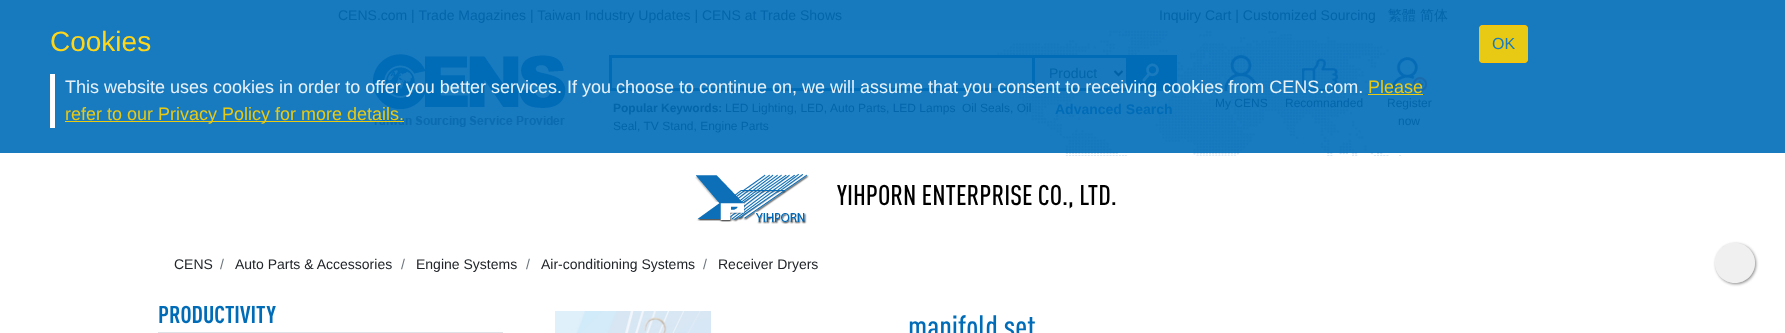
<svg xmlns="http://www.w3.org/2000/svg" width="1785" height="333">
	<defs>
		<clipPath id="clip1"><path d="M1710 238H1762V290H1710ZM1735 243C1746 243 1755 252 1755 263C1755 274 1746 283 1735 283C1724 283 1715 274 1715 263C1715 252 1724 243 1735 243Z" clip-rule="evenodd" /></clipPath>
	</defs>
	<rect width="100%" height="100%" fill="#FFFFFF" />
	<rect x="0" y="30" width="1785" height="123" fill="#197BBF" />
	<rect x="0" y="0" width="1785" height="30" fill="#187ABE" />
	<g font-family="Liberation Sans" font-size="14" fill="#0365AA">
		<text x="338" y="20">CENS.com | Trade Magazines | Taiwan Industry Updates | CENS at Trade Shows</text>
		<text x="1159" y="20">Inquiry Cart | Customized Sourcing</text>
	</g>
	<g font-family="WenQuanYi Zen Hei" font-size="14" font-weight="500" fill="#0365AA">
		<text x="1388" y="20">繁體</text>
		<text x="1420" y="20">简体</text>
	</g>
	<text x="50" y="51" font-family="Liberation Sans" font-size="28" fill="#FFD71A">Cookies</text>
	<rect x="50" y="74" width="5" height="54" fill="#FFFFFF" />
	<image x="997" y="30" width="404" height="126" href="assets/img1.png" />
	<image x="372" y="54" width="194" height="73" href="assets/img2.png" />
	<rect x="609" y="55" width="568" height="36" fill="#006CB8" />
	<rect x="612" y="58" width="420" height="30" fill="#197BBF" />
	<rect x="1035" y="58" width="91" height="30" fill="#1879BE" />
	<image x="1136" y="58" width="30" height="30" href="assets/img3.png" />
	<image x="1224" y="55" width="34" height="36" href="assets/img4.png" />
	<image x="1302" y="58" width="36" height="33" href="assets/img5.png" />
	<text x="65" y="93" font-family="Liberation Sans" font-size="18" fill="#E7F1F8">This website uses cookies in order to offer you better services. If you choose to continue on, we will assume that you consent to receiving cookies from CENS.com.</text>
	<image x="1391" y="57" width="36" height="34" href="assets/img6.png" />
	<text x="1368" y="93" font-family="Liberation Sans" font-size="18" fill="#E8C913">Please</text>
	<rect x="1368" y="94" width="55" height="1" fill="#FFD200" fill-opacity="0.9" />
	<rect x="65" y="121" width="339" height="1" fill="#FFD200" fill-opacity="0.9" />
	<text x="65" y="120" font-family="Liberation Sans" font-size="18" fill="#E8C913">refer to our Privacy Policy for more details.</text>
	<rect x="1479" y="25" width="49" height="38" rx="4" fill="#E8C913" />
	<rect x="1479.5" y="25.5" width="48" height="37" rx="3.5" fill="none" stroke="#FFC107" stroke-opacity="0.9" />
	<text x="1492" y="49" font-family="Liberation Sans" font-size="16" fill="#1A7BBF">OK</text>
	<path d="M1114.5 71L1118.5 75L1122.5 71" fill="none" stroke="#0061A6" stroke-width="2" />
	<text x="1049" y="78" font-family="Liberation Sans" font-size="14" fill="#0365AA">Product</text>
	<text x="613" y="112" font-family="Liberation Sans" font-size="12" font-weight="700" fill="#0365AA">Popular Keywords:</text>
	<g font-family="Liberation Sans" font-size="12" fill="#0365AA">
		<text x="725" y="112">LED Lighting, LED,</text>
		<text x="830" y="112">Auto Parts, LED Lamps</text>
		<text x="962" y="112">Oil Seals, Oil</text>
		<text x="613" y="130">Seal, TV Stand, Engine Parts</text>
	</g>
	<text x="1055" y="114" font-family="Liberation Sans" font-size="14" font-weight="700" fill="#006CB8">Advanced Search</text>
	<g font-family="Liberation Sans" font-size="12" fill="#0365AA">
		<text x="1215" y="107">My CENS</text>
		<text x="1285" y="107">Recomnanded</text>
		<text x="1387" y="107">Register</text>
		<text x="1398" y="125">now</text>
	</g>
	<image x="695" y="174" width="114" height="50" href="assets/img7.png" />
	<text x="837" y="205" font-family="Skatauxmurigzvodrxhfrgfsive" font-size="28" font-weight="500" fill="#000000">YIHPORN ENTERPRISE CO., LTD.</text>
	<text x="174" y="269" font-family="Liberation Sans" font-size="14" fill="#212529">CENS</text>
	<text x="220" y="269" font-family="Liberation Sans" font-size="14" fill="#6C757D">/</text>
	<text x="235" y="269" font-family="Liberation Sans" font-size="14" fill="#212529">Auto Parts &amp; Accessories</text>
	<text x="401" y="269" font-family="Liberation Sans" font-size="14" fill="#6C757D">/</text>
	<text x="416" y="269" font-family="Liberation Sans" font-size="14" fill="#212529">Engine Systems</text>
	<text x="526" y="269" font-family="Liberation Sans" font-size="14" fill="#6C757D">/</text>
	<text x="541" y="269" font-family="Liberation Sans" font-size="14" fill="#212529">Air-conditioning Systems</text>
	<text x="703" y="269" font-family="Liberation Sans" font-size="14" fill="#6C757D">/</text>
	<text x="718" y="269" font-family="Liberation Sans" font-size="14" fill="#212529">Receiver Dryers</text>
	<rect x="158" y="332" width="345" height="1" fill="#DEE2E6" />
	<text x="158" y="323" font-family="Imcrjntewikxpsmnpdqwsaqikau" font-size="24" font-weight="700" fill="#006CB8">PRODUCTIVITY</text>
	<image x="555" y="311" width="156" height="22" href="assets/img8.png" />
	<text x="908" y="338" font-family="Skatauxmurigzvodrxhfrgfsive" font-size="32" font-weight="500" fill="#006CB8">manifold set</text>
	<g clip-path="url(#clip1)">
		<rect x="1716" y="244" width="40" height="40" rx="20" fill="#888888" filter="blur(1.5px)" />
	</g>
	<circle cx="1735" cy="263" r="20" fill="#E2E2E2" fill-opacity="0.5" />
</svg>
